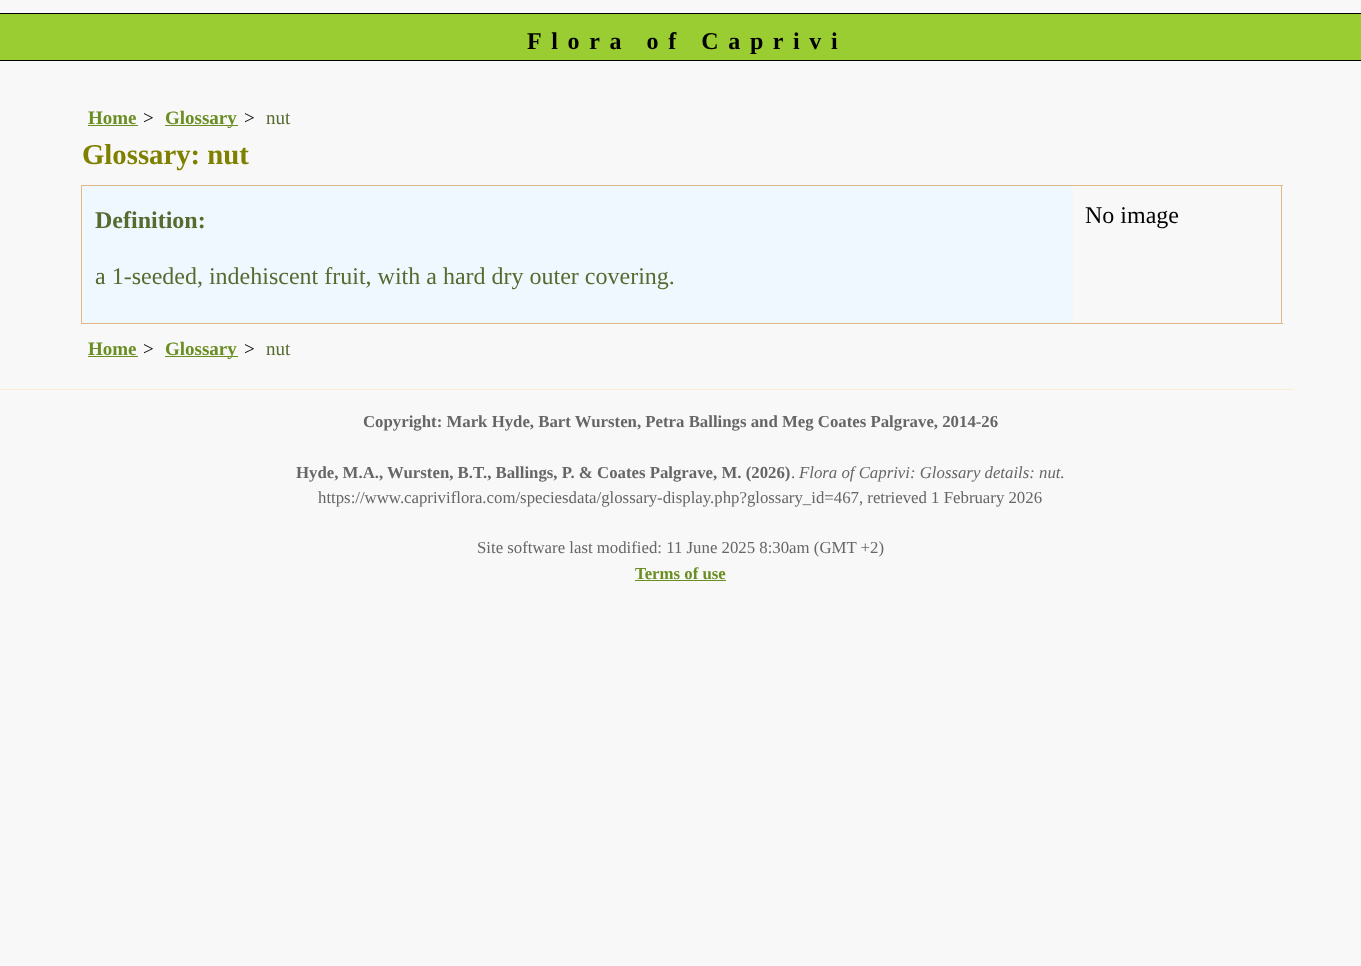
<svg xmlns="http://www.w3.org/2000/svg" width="1361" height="966">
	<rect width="100%" height="100%" fill="#F8F8F8" />
	<rect x="0" y="14" width="1361" height="46" fill="#9ACD32" />
	<rect x="0" y="13" width="1361" height="1" fill="#000000" />
	<rect x="0" y="60" width="1361" height="1" fill="#000000" />
	<text x="527" y="49" font-family="Liberation Serif" font-size="24" font-weight="700" letter-spacing="9.6" fill="#000000">Flora of Caprivi</text>
	<text x="88" y="124" font-family="Liberation Serif" font-size="19" font-weight="700" fill="#6B8E23">Home</text>
	<rect x="88" y="125" width="50" height="1" fill="#6B8E23" />
	<text x="143" y="124" font-family="Liberation Serif" font-size="19" fill="#000000">&gt;</text>
	<rect x="165" y="125" width="73" height="1" fill="#6B8E23" />
	<text x="165" y="124" font-family="Liberation Serif" font-size="19" font-weight="700" fill="#6B8E23">Glossary</text>
	<text x="244" y="124" font-family="Liberation Serif" font-size="19" fill="#000000">&gt;</text>
	<text x="266" y="124" font-family="Liberation Serif" font-size="19" fill="#556B2F">nut</text>
	<text x="82" y="164" font-family="Liberation Serif" font-size="28.75" font-weight="700" fill="#808000">Glossary: nut</text>
	<rect x="81" y="185" width="1202" height="1" fill="#DEB887" />
	<rect x="1281" y="185" width="1" height="139" fill="#DEB887" />
	<rect x="81" y="323" width="1202" height="1" fill="#DEB887" />
	<rect x="81" y="185" width="1" height="139" fill="#DEB887" />
	<rect x="83" y="186" width="990" height="137" fill="#F0F8FF" />
	<text x="95" y="228" font-family="Liberation Serif" font-size="24" font-weight="700" fill="#556B2F">Definition:</text>
	<text x="95" y="284" font-family="Liberation Serif" font-size="24" fill="#556B2F">a 1-seeded, indehiscent fruit, with a hard dry outer covering.</text>
	<text x="1085" y="223" font-family="Liberation Serif" font-size="24" fill="#000000">No image</text>
	<text x="88" y="355" font-family="Liberation Serif" font-size="19" font-weight="700" fill="#6B8E23">Home</text>
	<rect x="88" y="356" width="50" height="1" fill="#6B8E23" />
	<text x="143" y="355" font-family="Liberation Serif" font-size="19" fill="#000000">&gt;</text>
	<rect x="165" y="356" width="73" height="1" fill="#6B8E23" />
	<text x="165" y="355" font-family="Liberation Serif" font-size="19" font-weight="700" fill="#6B8E23">Glossary</text>
	<text x="244" y="355" font-family="Liberation Serif" font-size="19" fill="#000000">&gt;</text>
	<text x="266" y="355" font-family="Liberation Serif" font-size="19" fill="#556B2F">nut</text>
	<rect x="0" y="389" width="1294" height="1" fill="#FAEDD4" />
	<g font-family="Liberation Serif" font-size="16.8" font-weight="700" fill="#666666">
		<text x="363" y="427">Copyright: Mark Hyde, Bart Wursten, Petra Ballings and Meg Coates Palgrave, 2014-26</text>
		<text x="296" y="478">Hyde, M.A., Wursten, B.T., Ballings, P. &amp; Coates Palgrave, M. (2026)</text>
	</g>
	<text x="791" y="478" font-family="Liberation Serif" font-size="16.8" fill="#666666">.</text>
	<text x="799" y="478" font-family="Liberation Serif" font-size="16.8" font-style="italic" fill="#666666">Flora of Caprivi: Glossary details: nut.</text>
	<g font-family="Liberation Serif" font-size="16.8" fill="#666666">
		<text x="318" y="503">https://www.capriviflora.com/speciesdata/glossary-display.php?glossary_id=467, retrieved 1 February 2026</text>
		<text x="477" y="553">Site software last modified: 11 June 2025 8:30am (GMT +2)</text>
	</g>
	<text x="635" y="579" font-family="Liberation Serif" font-size="16.8" font-weight="700" fill="#6B8E23">Terms of use</text>
	<rect x="635" y="580" width="91" height="1" fill="#6B8E23" />
</svg>
